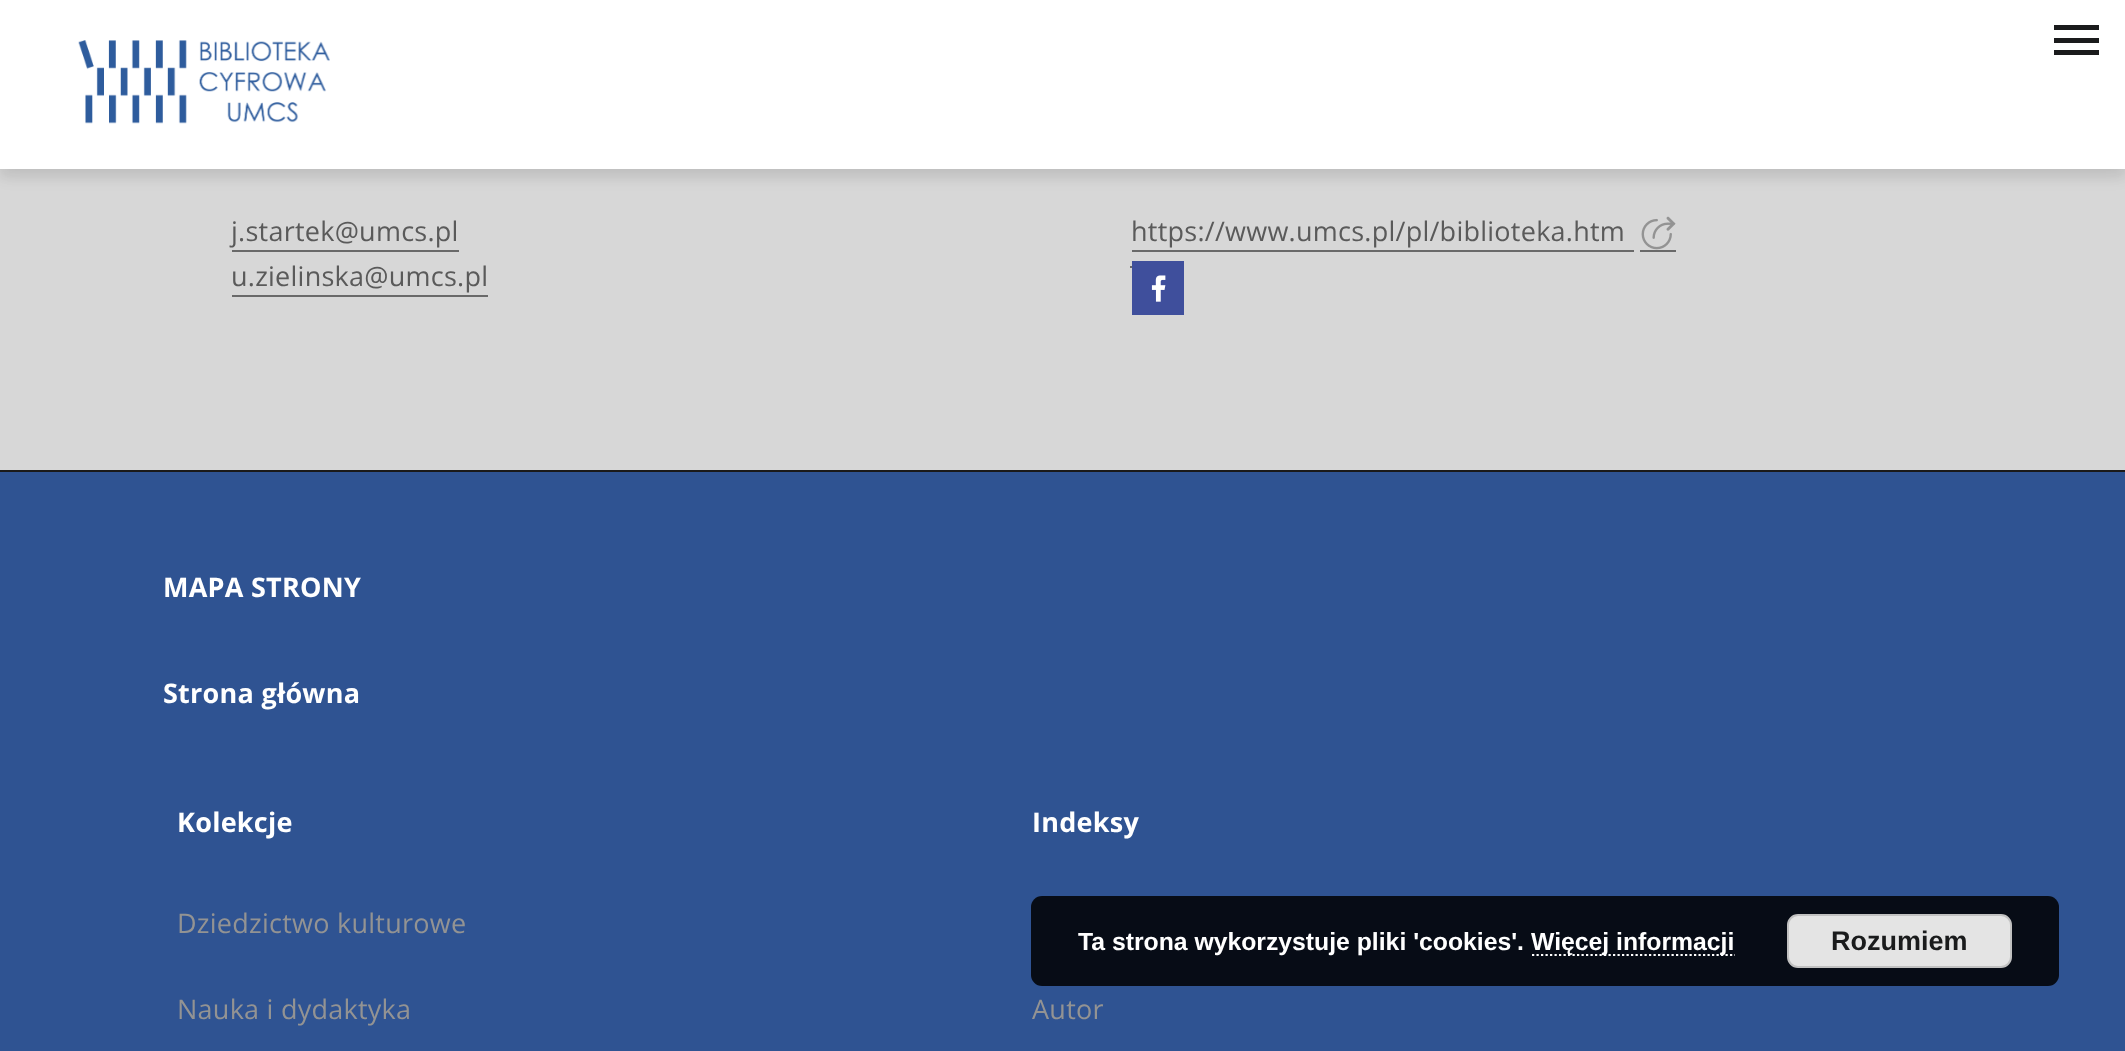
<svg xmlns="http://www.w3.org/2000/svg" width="2125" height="1051">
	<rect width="100%" height="100%" fill="#2F5392" />
	<rect x="0" y="169" width="2125" height="301" fill="#D7D7D7" />
	<rect x="0" y="2" width="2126" height="169" fill="#000000" fill-opacity="0.08" filter="blur(11px)" />
	<rect x="0" y="9" width="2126" height="169" fill="#000000" fill-opacity="0.06" filter="blur(5.5px)" />
	<rect x="0" y="0" width="2125" height="169" fill="#FFFFFF" />
	<image x="78" y="40" width="252" height="84" href="assets/img1.png" />
	<path d="M2099 30H2054V25H2099ZM2099 38H2054V43H2099ZM2099 50H2054V55H2099Z" fill="#1A1B1C" />
	<text x="231" y="241" font-family="Open Sans" font-size="27" letter-spacing="0.25" fill="#5A5A5A">j.startek@umcs.pl</text>
	<rect x="232" y="250" width="227" height="2" fill="#696969" />
	<text x="231" y="286" font-family="Open Sans" font-size="27" letter-spacing="0.25" fill="#5A5A5A">u.zielinska@umcs.pl</text>
	<rect x="232" y="295" width="256" height="2" fill="#696969" />
	<text x="1131" y="241" font-family="Open Sans" font-size="27" letter-spacing="0.25" fill="#5A5A5A">https://www.umcs.pl/pl/biblioteka.htm</text>
	<rect x="1132" y="250" width="502" height="2" fill="#696969" />
	<rect x="1640" y="250" width="36" height="2" fill="#696969" />
	<image x="1641" y="216" width="35" height="34" href="assets/img2.png" />
	<rect x="1130" y="266" width="2" height="2" fill="#696969" />
	<rect x="1132" y="261" width="52" height="54" fill="#3F4F9C" />
	<image x="1151" y="275" width="15" height="27" href="assets/img3.png" />
	<rect x="0" y="470" width="2125" height="2" fill="#1B1A1A" />
	<g font-family="Open Sans" font-size="27" font-weight="700" letter-spacing="0.25" fill="#FFFFFF">
		<text x="163" y="597">MAPA STRONY</text>
		<text x="163" y="703">Strona główna</text>
		<text x="177" y="832">Kolekcje</text>
	</g>
	<g font-family="Open Sans" font-size="27" letter-spacing="0.25" fill="#939393">
		<text x="177" y="933">Dziedzictwo kulturowe</text>
		<text x="177" y="1019">Nauka i dydaktyka</text>
	</g>
	<text x="1032" y="832" font-family="Open Sans" font-size="27" font-weight="700" letter-spacing="0.25" fill="#FFFFFF">Indeksy</text>
	<text x="1032" y="1019" font-family="Open Sans" font-size="27" letter-spacing="0.25" fill="#939393">Autor</text>
	<rect x="1031" y="896" width="1028" height="90" rx="11" fill="#000000" fill-opacity="0.85" />
	<text x="1078" y="950" font-family="Liberation Sans" font-size="24.75" font-weight="700" fill="#FFFFFF">Ta strona wykorzystuje pliki 'cookies'.</text>
	<path d="M1532 955H1735" fill="none" stroke="#FFFFFF" stroke-width="2.2" stroke-dasharray="2.25 2.25" />
	<text x="1531" y="950" font-family="Liberation Sans" font-size="24.75" font-weight="700" fill="#FFFFFF">Więcej informacji</text>
	<rect x="1788" y="915" width="223" height="52" rx="10" fill="#E4E4E4" stroke="#C1C1C1" stroke-width="2" />
	<text x="1831" y="950" font-family="Liberation Sans" font-size="27" font-weight="700" fill="#1A1B1C">Rozumiem</text>
</svg>
